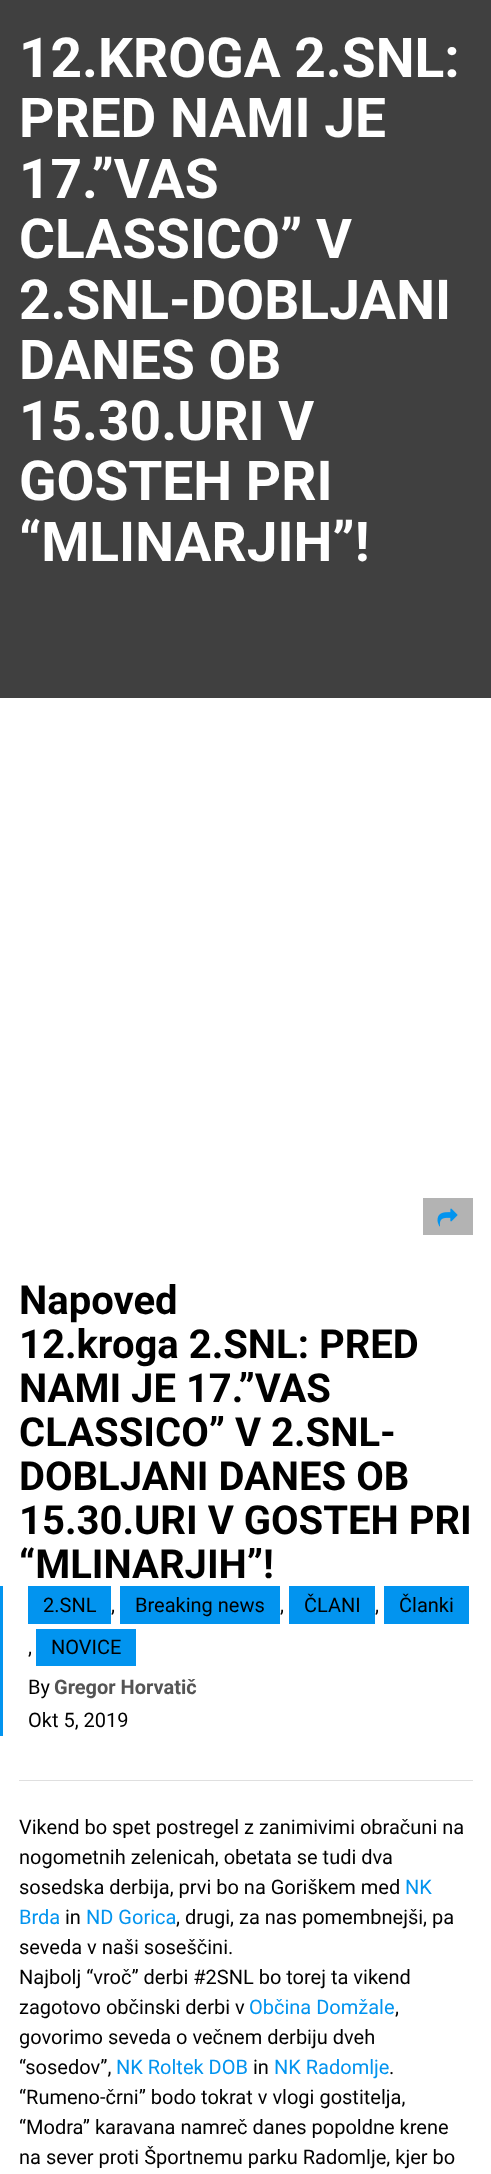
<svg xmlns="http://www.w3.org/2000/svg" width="491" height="2174">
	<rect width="100%" height="100%" fill="#FFFFFF" />
	<rect x="0" y="0" width="491" height="698" fill="#404040" />
	<g font-family="Roboto" font-size="55" font-weight="700" fill="#FFFFFF">
		<text x="19" y="77">12.KROGA 2.SNL:</text>
		<text x="19" y="137">PRED NAMI JE</text>
		<text x="19" y="198">17.”VAS</text>
		<text x="19" y="258">CLASSICO” V</text>
		<text x="19" y="319">2.SNL-DOBLJANI</text>
		<text x="19" y="379">DANES OB</text>
		<text x="19" y="440">15.30.URI V</text>
		<text x="19" y="500">GOSTEH PRI</text>
		<text x="19" y="561">“MLINARJIH”!</text>
	</g>
	<rect x="423" y="1198" width="50" height="37" fill="#B3B3B3" />
	<image x="437" y="1208" width="21" height="19" href="assets/img1.png" />
	<g font-family="Roboto" font-size="40" font-weight="700" fill="#000000">
		<text x="19" y="1314">Napoved</text>
		<text x="19" y="1358">12.kroga 2.SNL: PRED</text>
		<text x="19" y="1402">NAMI JE 17.”VAS</text>
		<text x="19" y="1446">CLASSICO” V 2.SNL-</text>
		<text x="19" y="1490">DOBLJANI DANES OB</text>
		<text x="19" y="1534">15.30.URI V GOSTEH PRI</text>
		<text x="19" y="1578">“MLINARJIH”!</text>
	</g>
	<rect x="0" y="1586" width="3" height="150" fill="#0294EF" />
	<rect x="28" y="1586" width="83" height="38" fill="#0294EF" />
	<g font-family="Roboto" font-size="20" fill="#000000">
		<text x="43" y="1612">2.SNL</text>
		<text x="111" y="1612">,</text>
	</g>
	<rect x="120" y="1586" width="160" height="38" fill="#0294EF" />
	<g font-family="Roboto" font-size="20" fill="#000000">
		<text x="135" y="1612">Breaking news</text>
		<text x="280" y="1612">,</text>
	</g>
	<rect x="289" y="1586" width="86" height="38" fill="#0294EF" />
	<g font-family="Roboto" font-size="20" fill="#000000">
		<text x="304" y="1612">ČLANI</text>
		<text x="375" y="1612">,</text>
	</g>
	<rect x="384" y="1586" width="85" height="38" fill="#0294EF" />
	<g font-family="Roboto" font-size="20" fill="#000000">
		<text x="399" y="1612">Članki</text>
		<text x="28" y="1654">,</text>
	</g>
	<rect x="36" y="1629" width="100" height="37" fill="#0294EF" />
	<g font-family="Roboto" font-size="20" fill="#000000">
		<text x="51" y="1654">NOVICE</text>
		<text x="28" y="1694">By</text>
	</g>
	<text x="54" y="1694" font-family="Roboto" font-size="20" font-weight="700" fill="#555555">Gregor Horvatič</text>
	<text x="28" y="1727" font-family="Roboto" font-size="20" fill="#000000">Okt 5, 2019</text>
	<rect x="19" y="1780" width="454" height="1" fill="#DFDFDF" />
	<g font-family="Roboto" font-size="20" fill="#000000">
		<text x="19" y="1834">Vikend bo spet postregel z zanimivimi obračuni na</text>
		<text x="19" y="1864">nogometnih zelenicah, obetata se tudi dva</text>
		<text x="19" y="1894">sosedska derbija, prvi bo na Goriškem med</text>
	</g>
	<g font-family="Roboto" font-size="20" fill="#0294EF">
		<text x="405" y="1894">NK</text>
		<text x="19" y="1924">Brda</text>
	</g>
	<text x="65" y="1924" font-family="Roboto" font-size="20" fill="#000000">in</text>
	<text x="86" y="1924" font-family="Roboto" font-size="20" fill="#0294EF">ND Gorica</text>
	<g font-family="Roboto" font-size="20" fill="#000000">
		<text x="176" y="1924">, drugi, za nas pomembnejši, pa</text>
		<text x="19" y="1954">seveda v naši soseščini.</text>
		<text x="19" y="1984">Najbolj “vroč” derbi #2SNL bo torej ta vikend</text>
		<text x="19" y="2014">zagotovo občinski derbi v</text>
	</g>
	<text x="249" y="2014" font-family="Roboto" font-size="20" fill="#0294EF">Občina Domžale</text>
	<g font-family="Roboto" font-size="20" fill="#000000">
		<text x="395" y="2014">,</text>
		<text x="19" y="2044">govorimo seveda o večnem derbiju dveh</text>
		<text x="19" y="2074">“sosedov”,</text>
	</g>
	<text x="116" y="2074" font-family="Roboto" font-size="20" fill="#0294EF">NK Roltek DOB</text>
	<text x="253" y="2074" font-family="Roboto" font-size="20" fill="#000000">in</text>
	<text x="274" y="2074" font-family="Roboto" font-size="20" fill="#0294EF">NK Radomlje</text>
	<g font-family="Roboto" font-size="20" fill="#000000">
		<text x="389" y="2074">.</text>
		<text x="19" y="2104">“Rumeno-črni” bodo tokrat v vlogi gostitelja,</text>
		<text x="19" y="2134">“Modra” karavana namreč danes popoldne krene</text>
		<text x="19" y="2164">na sever proti Športnemu parku Radomlje, kjer bo</text>
	</g>
</svg>
